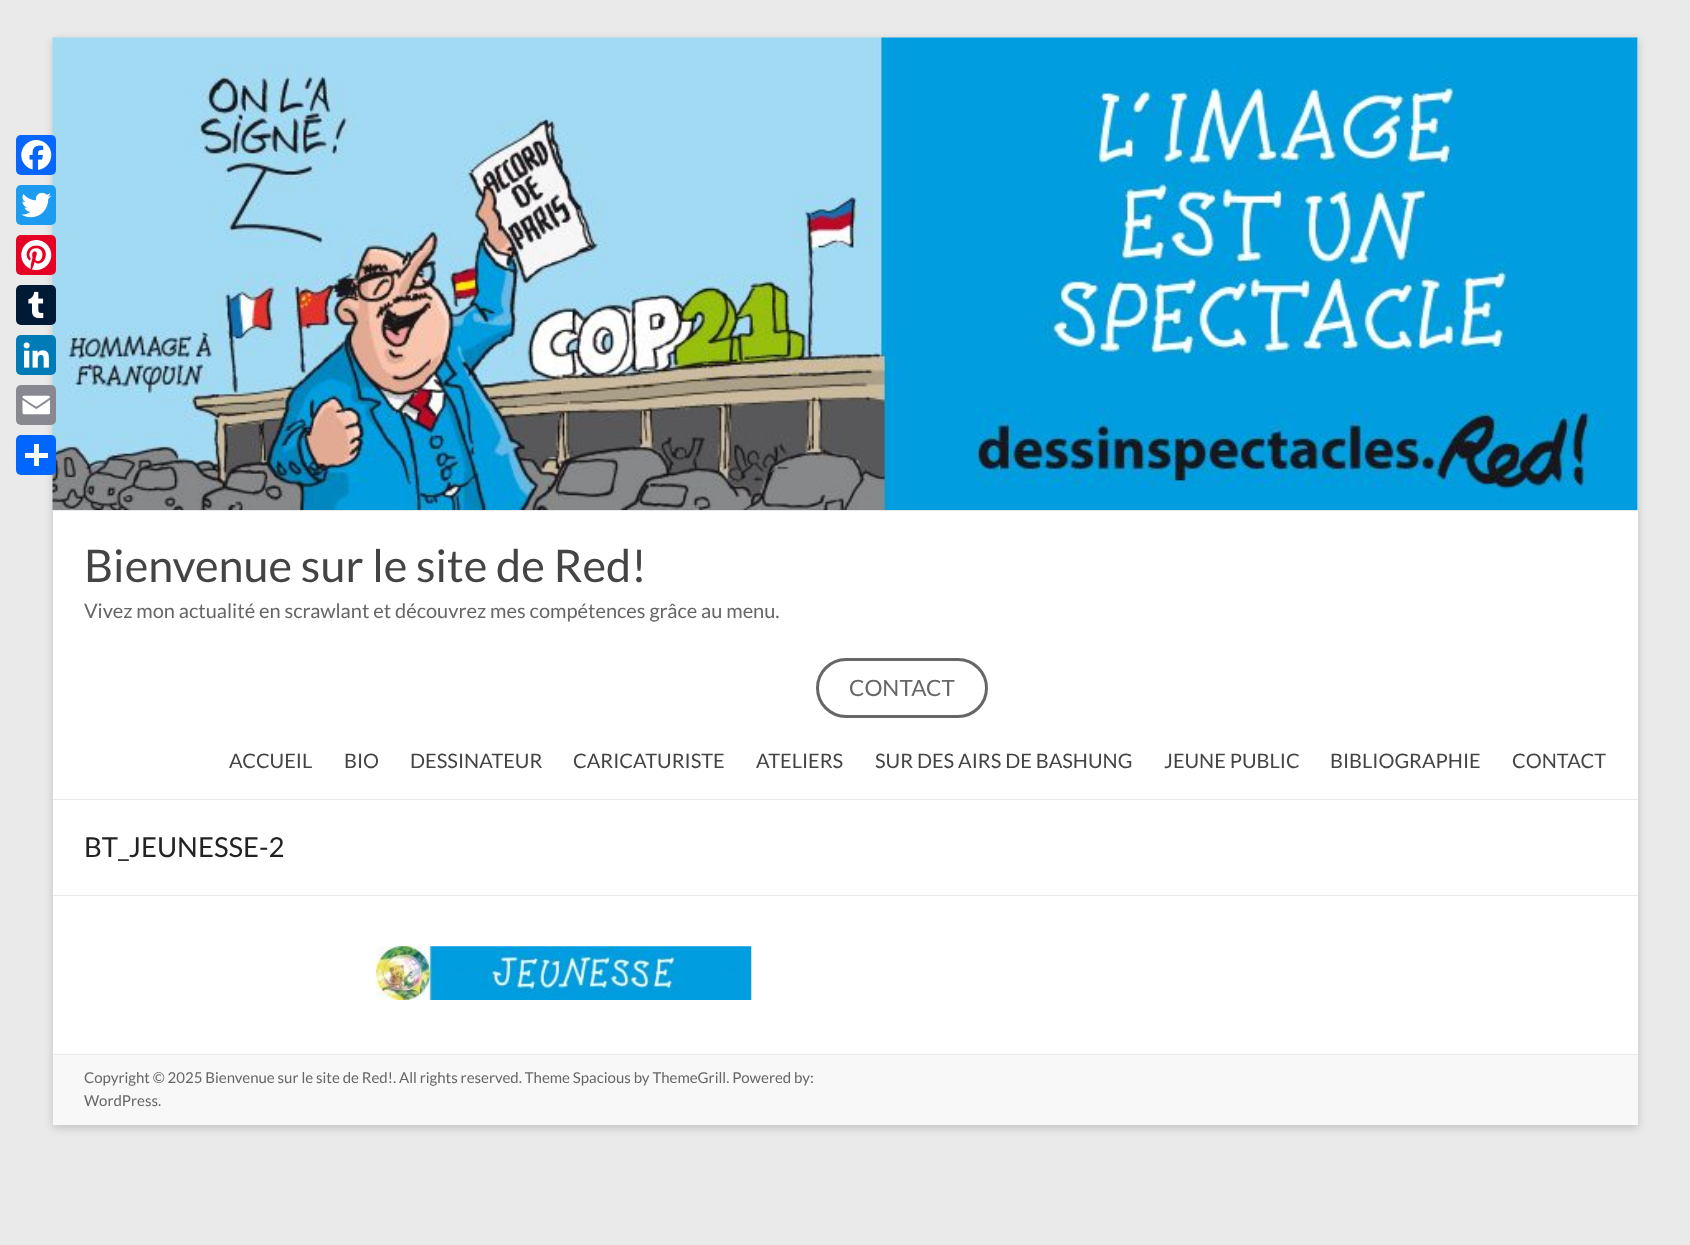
<svg xmlns="http://www.w3.org/2000/svg" width="1690" height="1245">
	<rect width="100%" height="100%" fill="#EAEAEA" />
	<rect x="53" y="40" width="1585" height="1088" fill="#646464" fill-opacity="0.3" filter="blur(4px)" />
	<rect x="53" y="38" width="1585" height="1016" fill="#FFFFFF" />
	<image x="52" y="37" width="1586" height="473" href="assets/img7.png" />
	<rect x="16" y="135" width="40" height="40" rx="5" fill="#0866FF" />
	<image x="21" y="140" width="31" height="30" href="assets/img1.png" />
	<rect x="16" y="185" width="40" height="40" rx="5" fill="#1D9BF0" />
	<image x="21" y="192" width="31" height="26" href="assets/img2.png" />
	<rect x="16" y="235" width="40" height="40" rx="5" fill="#E60023" />
	<image x="21" y="240" width="31" height="30" href="assets/img3.png" />
	<rect x="16" y="285" width="40" height="40" rx="5" fill="#001935" />
	<image x="28" y="291" width="16" height="28" href="assets/img4.png" />
	<rect x="16" y="335" width="40" height="40" rx="5" fill="#007BB5" />
	<image x="23" y="342" width="26" height="26" href="assets/img5.png" />
	<rect x="16" y="385" width="40" height="40" rx="5" fill="#888990" />
	<image x="22" y="395" width="28" height="20" href="assets/img6.png" />
	<rect x="16" y="435" width="40" height="40" rx="5" fill="#0166FF" />
	<rect x="34" y="444" width="5" height="22" fill="#FFFFFF" />
	<rect x="25" y="453" width="23" height="5" fill="#FFFFFF" />
	<rect x="53" y="510" width="1585" height="1" fill="#EAEAEA" />
	<rect x="53" y="799" width="1585" height="1" fill="#EAEAEA" />
	<text x="84" y="582" font-family="Lato" font-size="45" fill="#444444">Bienvenue sur le site de Red!</text>
	<text x="84" y="618" font-family="Lato" font-size="20" fill="#666666">Vivez mon actualité en scrawlant et découvrez mes compétences grâce au menu.</text>
	<rect x="817.5" y="659.5" width="169" height="57" rx="28.5" fill="none" stroke="#666666" stroke-width="3" />
	<text x="849" y="696" font-family="Lato" font-size="22.5" fill="#666666">CONTACT</text>
	<g font-family="Lato" font-size="20" fill="#444444">
		<text x="229" y="768">ACCUEIL</text>
		<text x="344" y="768">BIO</text>
		<text x="410" y="768">DESSINATEUR</text>
		<text x="573" y="768">CARICATURISTE</text>
		<text x="756" y="768">ATELIERS</text>
		<text x="875" y="768">SUR DES AIRS DE BASHUNG</text>
		<text x="1164" y="768">JEUNE PUBLIC</text>
		<text x="1330" y="768">BIBLIOGRAPHIE</text>
		<text x="1512" y="768">CONTACT</text>
	</g>
	<rect x="53" y="895" width="1585" height="1" fill="#EAEAEA" />
	<text x="84" y="857" font-family="Lato" font-size="27.5" fill="#222222">BT_JEUNESSE-2</text>
	<image x="376" y="946" width="376" height="54" href="assets/img8.png" />
	<rect x="53" y="1055" width="1585" height="70" fill="#F8F8F8" />
	<rect x="53" y="1054" width="1585" height="1" fill="#EAEAEA" />
	<g font-family="Lato" font-size="15" fill="#666666">
		<text x="84" y="1083">Copyright © 2025 Bienvenue sur le site de Red!. All rights reserved. Theme Spacious by ThemeGrill. Powered by:</text>
		<text x="84" y="1106">WordPress.</text>
	</g>
</svg>
